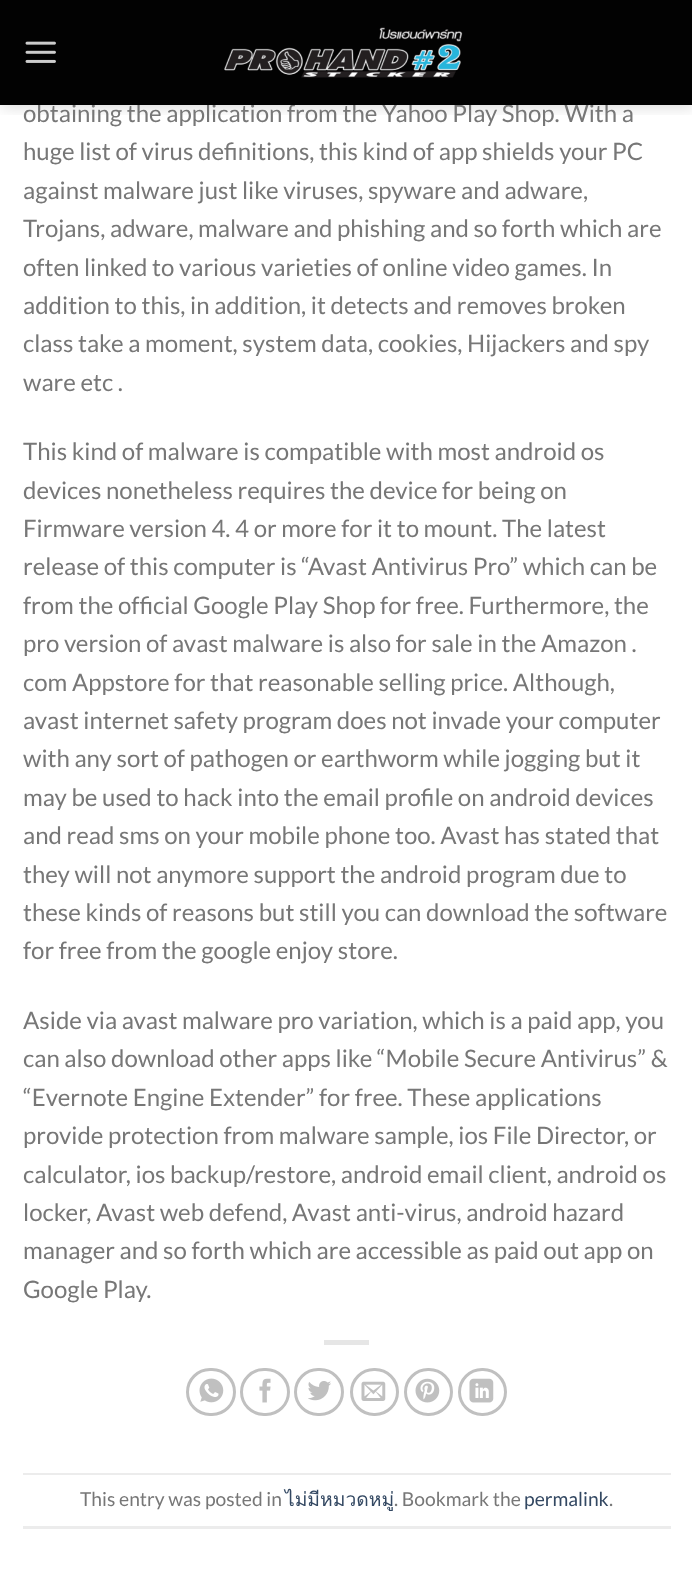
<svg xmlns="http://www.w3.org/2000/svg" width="692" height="1584">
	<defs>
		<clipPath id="clip1"><rect x="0" y="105" width="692" height="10" /></clipPath>
	</defs>
	<rect width="100%" height="100%" fill="#FFFFFF" />
	<g clip-path="url(#clip1)">
		<rect x="2" y="2" width="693" height="105" fill="#000000" fill-opacity="0.15" filter="blur(7.5px)" />
	</g>
	<text x="23" y="122" font-family="Lato" font-size="24" fill="#777777">obtaining the application from the Yahoo Play Shop. With a</text>
	<rect x="0" y="0" width="692" height="105" fill="#000000" fill-opacity="0.9" />
	<rect x="0" y="0" width="692" height="105" fill="#000000" fill-opacity="0.9" />
	<image x="25" y="41" width="31" height="22" href="assets/img1.png" />
	<image x="224" y="27" width="239" height="51" href="assets/img2.png" />
	<g font-family="Lato" font-size="24" fill="#777777">
		<text x="23" y="160">huge list of virus definitions, this kind of app shields your PC</text>
		<text x="23" y="199">against malware just like viruses, spyware and adware,</text>
		<text x="23" y="237">Trojans, adware, malware and phishing and so forth which are</text>
		<text x="23" y="276">often linked to various varieties of online video games. In</text>
		<text x="23" y="314">addition to this, in addition, it detects and removes broken</text>
		<text x="23" y="352">class take a moment, system data, cookies, Hijackers and spy</text>
		<text x="23" y="391">ware etc .</text>
		<text x="23" y="460">This kind of malware is compatible with most android os</text>
		<text x="23" y="499">devices nonetheless requires the device for being on</text>
		<text x="23" y="537">Firmware version 4. 4 or more for it to mount. The latest</text>
		<text x="23" y="575">release of this computer is “Avast Antivirus Pro” which can be</text>
		<text x="23" y="614">from the official Google Play Shop for free. Furthermore, the</text>
		<text x="23" y="652">pro version of avast malware is also for sale in the Amazon .</text>
		<text x="23" y="691">com Appstore for that reasonable selling price. Although,</text>
		<text x="23" y="729">avast internet safety program does not invade your computer</text>
		<text x="23" y="767">with any sort of pathogen or earthworm while jogging but it</text>
		<text x="23" y="806">may be used to hack into the email profile on android devices</text>
		<text x="23" y="844">and read sms on your mobile phone too. Avast has stated that</text>
		<text x="23" y="883">they will not anymore support the android program due to</text>
		<text x="23" y="921">these kinds of reasons but still you can download the software</text>
		<text x="23" y="959">for free from the google enjoy store.</text>
		<text x="23" y="1029">Aside via avast malware pro variation, which is a paid app, you</text>
		<text x="23" y="1067">can also download other apps like “Mobile Secure Antivirus” &amp;</text>
		<text x="23" y="1106">“Evernote Engine Extender” for free. These applications</text>
		<text x="23" y="1144">provide protection from malware sample, ios File Director, or</text>
		<text x="23" y="1183">calculator, ios backup/restore, android email client, android os</text>
		<text x="23" y="1221">locker, Avast web defend, Avast anti-virus, android hazard</text>
		<text x="23" y="1259">manager and so forth which are accessible as paid out app on</text>
		<text x="23" y="1298">Google Play.</text>
	</g>
	<rect x="324" y="1340" width="45" height="5" fill="#E6E6E6" />
	<rect x="187.5" y="1369.5" width="47" height="45" rx="22.5" fill="none" stroke="#C0C0C0" stroke-width="3" />
	<image x="199" y="1378" width="25" height="25" href="assets/img3.png" />
	<rect x="241.5" y="1369.5" width="47" height="45" rx="22.5" fill="none" stroke="#C0C0C0" stroke-width="3" />
	<image x="259" y="1378" width="12" height="25" href="assets/img4.png" />
	<rect x="295.5" y="1369.5" width="47" height="45" rx="22.5" fill="none" stroke="#C0C0C0" stroke-width="3" />
	<image x="308" y="1381" width="23" height="20" href="assets/img5.png" />
	<rect x="351.5" y="1369.5" width="46" height="45" rx="22.5" fill="none" stroke="#C0C0C0" stroke-width="3" />
	<image x="361" y="1381" width="25" height="20" href="assets/img6.png" />
	<rect x="405.5" y="1369.5" width="46" height="45" rx="22.5" fill="none" stroke="#C0C0C0" stroke-width="3" />
	<image x="415" y="1378" width="25" height="25" href="assets/img7.png" />
	<rect x="459.5" y="1369.5" width="46" height="45" rx="22.5" fill="none" stroke="#C0C0C0" stroke-width="3" />
	<image x="469" y="1378" width="25" height="25" href="assets/img8.png" />
	<rect x="23" y="1473" width="648" height="2" fill="#ECECEC" />
	<rect x="23" y="1526" width="648" height="3" fill="#ECECEC" />
	<text x="80" y="1506" font-family="Lato" font-size="19.25" fill="#777777">This entry was posted in</text>
	<text x="285" y="1506" font-family="Loma" font-size="19.25" fill="#334862">ไม่มีหมวดหมู่</text>
	<text x="394" y="1506" font-family="Lato" font-size="19.25" fill="#777777">. Bookmark the</text>
	<text x="524" y="1506" font-family="Lato" font-size="19.25" fill="#334862">permalink</text>
	<text x="609" y="1506" font-family="Lato" font-size="19.25" fill="#777777">.</text>
</svg>
